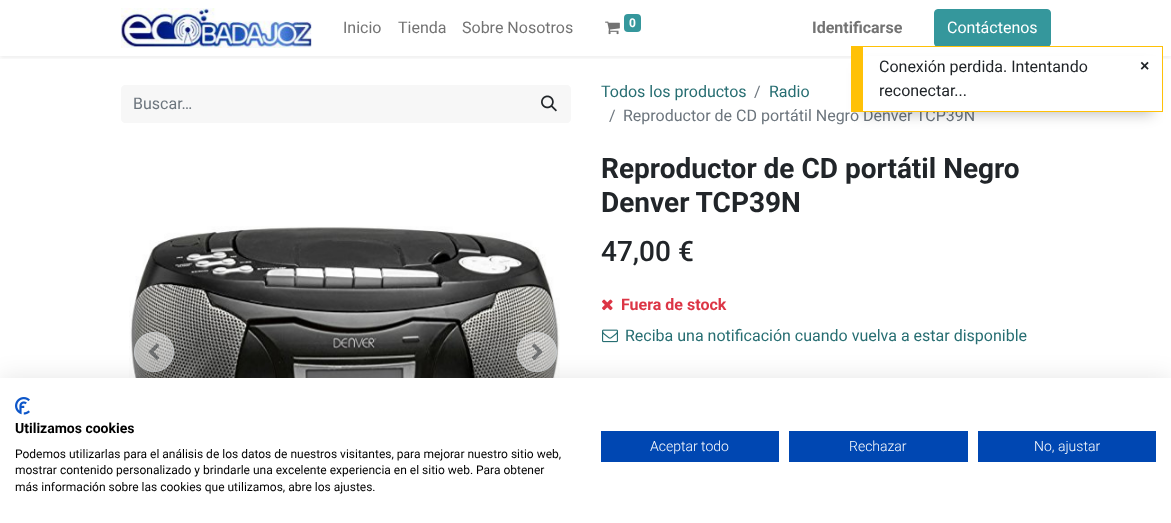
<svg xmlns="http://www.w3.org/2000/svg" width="1171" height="523">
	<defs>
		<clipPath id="clip1"><rect x="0" y="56" width="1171" height="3" /></clipPath>
	</defs>
	<rect width="100%" height="100%" fill="#FFFFFF" />
	<g clip-path="url(#clip1)">
		<rect x="0" y="2" width="1171" height="56" fill="#000000" fill-opacity="0.07" filter="blur(2px)" />
	</g>
	<image x="121" y="8" width="191" height="40" href="assets/img1.png" />
	<g font-family="Roboto" font-size="16" fill="#737373">
		<text x="343" y="33">Inicio</text>
		<text x="398" y="33">Tienda</text>
		<text x="462" y="33">Sobre Nosotros</text>
	</g>
	<image x="605" y="21" width="15" height="14" href="assets/img2.png" />
	<rect x="624" y="14" width="17" height="18" rx="4" fill="#35979C" />
	<text x="629" y="27" font-family="Roboto" font-size="12" font-weight="700" fill="#FFFFFF">0</text>
	<text x="812" y="33" font-family="Roboto" font-size="16" font-weight="700" fill="#737373">Identificarse</text>
	<rect x="934.5" y="9.5" width="116" height="37" rx="3.5" fill="#35979C" stroke="#35979C" />
	<text x="947" y="33" font-family="Roboto" font-size="16" fill="#FFFFFF">Contáctenos</text>
	<path d="M125 85H529V123H125C123 123 121 121 121 119V89C121 87 123 85 125 85Z" fill="#F7F7F7" />
	<text x="133" y="109" font-family="Roboto" font-size="16" fill="#6C757D">Buscar…</text>
	<path d="M528 85H567C569 85 571 87 571 89V119C571 121 569 123 567 123H528Z" fill="#F7F7F7" />
	<image x="541" y="95" width="16" height="17" href="assets/img3.png" />
	<text x="601" y="97" font-family="Roboto" font-size="16" fill="#276E72">Todos los productos</text>
	<text x="754" y="97" font-family="Roboto" font-size="16" fill="#6C757D">/</text>
	<text x="769" y="97" font-family="Roboto" font-size="16" fill="#276E72">Radio</text>
	<g font-family="Roboto" font-size="16" fill="#6C757D">
		<text x="609" y="121">/</text>
		<text x="623" y="121">Reproductor de CD portátil Negro Denver TCP39N</text>
	</g>
	<image x="129" y="226" width="431" height="152" href="assets/img4.png" />
	<circle cx="154" cy="352" r="20" fill="#FFFFFF" fill-opacity="0.5" />
	<circle cx="154" cy="352" r="19.5" fill="none" stroke="#CED4DA" stroke-opacity="0.5" />
	<image x="148" y="343" width="12" height="17" href="assets/img5.png" />
	<circle cx="537" cy="352" r="20" fill="#FFFFFF" fill-opacity="0.5" />
	<circle cx="537" cy="352" r="19.5" fill="none" stroke="#CED4DA" stroke-opacity="0.5" />
	<image x="532" y="343" width="11" height="17" href="assets/img6.png" />
	<g font-family="Roboto" font-size="28" font-weight="700" fill="#212529">
		<text x="601" y="178">Reproductor de CD portátil Negro</text>
		<text x="601" y="212">Denver TCP39N</text>
	</g>
	<text x="601" y="261" font-family="Roboto" font-size="28" font-weight="500" fill="#212529">47,00 €</text>
	<image x="602" y="299" width="11" height="12" href="assets/img7.png" />
	<text x="621" y="310" font-family="Roboto" font-size="16" font-weight="700" fill="#DC3545">Fuera de stock</text>
	<image x="602" y="329" width="16" height="14" href="assets/img8.png" />
	<text x="625" y="341" font-family="Roboto" font-size="16" fill="#276E72">Reciba una notificación cuando vuelva a estar disponible</text>
	<rect x="861" y="68" width="292" height="46" fill="#000000" fill-opacity="0.25" filter="blur(7px)" />
	<rect x="863" y="56" width="299" height="55" fill="#FFFFFF" />
	<rect x="863" y="46" width="300" height="1" fill="#FFC107" />
	<rect x="1162" y="46" width="1" height="66" fill="#FFC107" />
	<rect x="863" y="111" width="300" height="1" fill="#FFC107" />
	<rect x="851" y="46" width="12" height="66" fill="#FFC107" />
	<g font-family="Roboto" font-size="16" fill="#212529">
		<text x="879" y="72">Conexión perdida. Intentando</text>
		<text x="879" y="96">reconectar...</text>
	</g>
	<text x="1140" y="71" font-family="Liberation Sans" font-size="16" font-weight="700" fill="#212529">×</text>
	<rect x="0" y="378" width="1171" height="145" fill="#000000" fill-opacity="0.1" filter="blur(12px)" />
	<rect x="0" y="378" width="1171" height="145" fill="#FFFFFF" />
	<image x="15" y="397" width="15" height="18" href="assets/img9.png" />
	<text x="15" y="433" font-family="Roboto" font-size="14" font-weight="700" fill="#000000">Utilizamos cookies</text>
	<g font-family="Roboto" font-size="12" fill="#000000">
		<text x="15" y="458">Podemos utilizarlas para el análisis de los datos de nuestros visitantes, para mejorar nuestro sitio web,</text>
		<text x="15" y="474">mostrar contenido personalizado y brindarle una excelente experiencia en el sitio web. Para obtener</text>
		<text x="15" y="491">más información sobre las cookies que utilizamos, abre los ajustes.</text>
	</g>
	<rect x="601" y="431" width="178" height="31" fill="#0047B2" />
	<text x="650" y="451" font-family="Roboto" font-size="14" font-weight="300" fill="#FFFFFF">Aceptar todo</text>
	<rect x="789" y="431" width="179" height="31" fill="#0047B2" />
	<text x="849" y="451" font-family="Roboto" font-size="14" font-weight="300" fill="#FFFFFF">Rechazar</text>
	<rect x="978" y="431" width="178" height="31" fill="#0047B2" />
	<text x="1034" y="451" font-family="Roboto" font-size="14" font-weight="300" fill="#FFFFFF">No, ajustar</text>
</svg>
